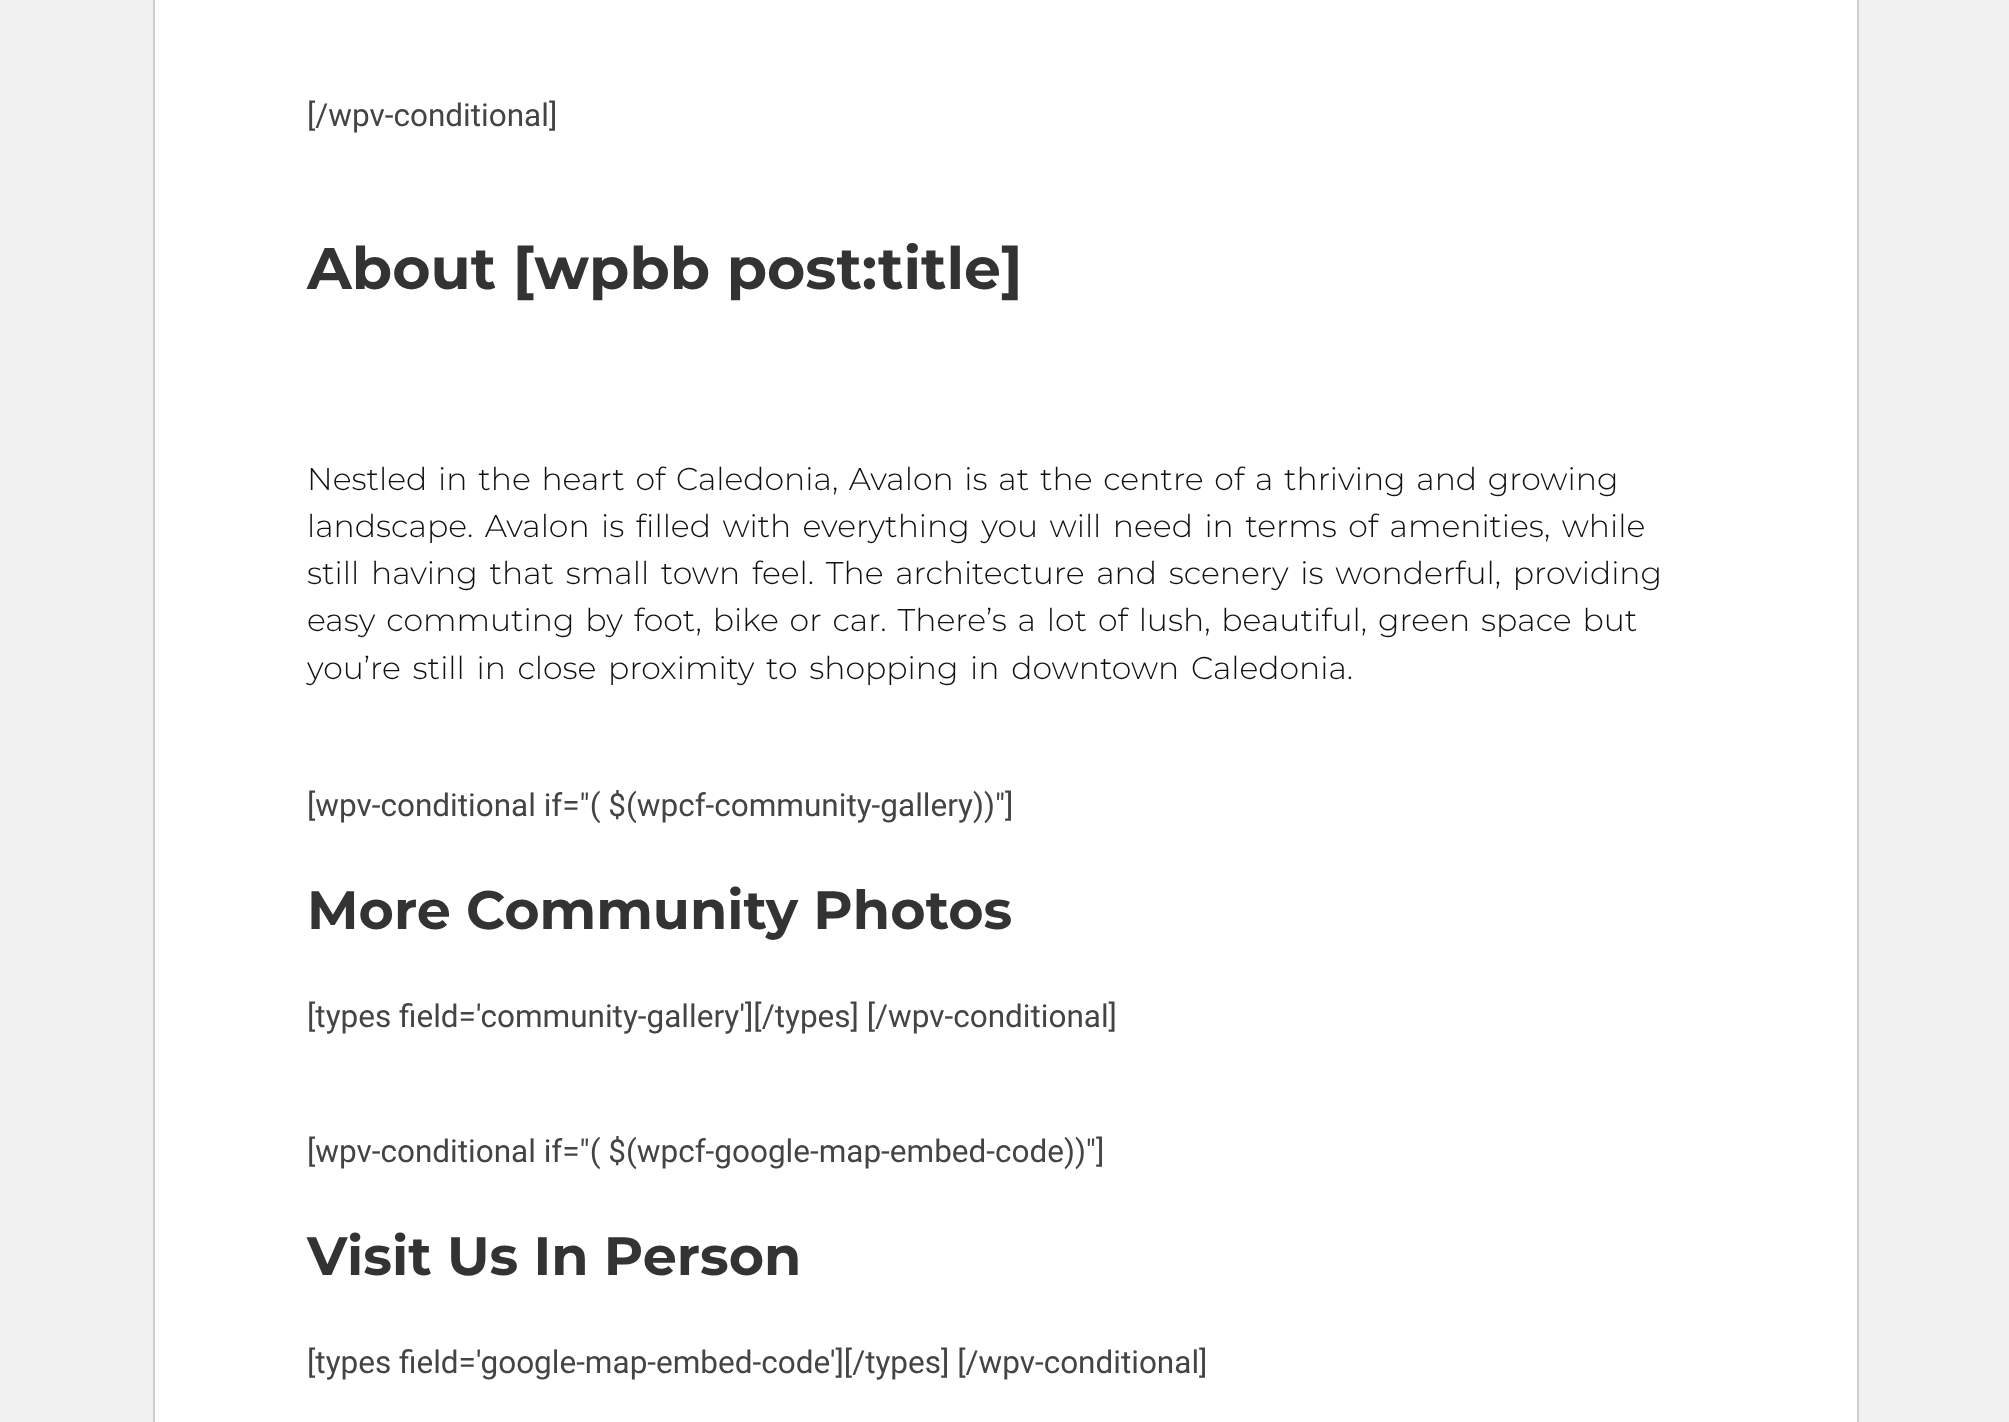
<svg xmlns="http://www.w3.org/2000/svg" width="2009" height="1422">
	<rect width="100%" height="100%" fill="#F1F1F1" />
	<rect x="154" y="-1" width="1704" height="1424" fill="#FFFFFF" stroke="#CCD0D4" stroke-width="2" />
	<text x="307" y="126" font-family="Roboto" font-size="31.5" fill="#444444">[/wpv-conditional]</text>
	<text x="307" y="289" font-family="Montserrat" font-size="58.5" font-weight="700" fill="#333333">About [wpbb post:title]</text>
	<g font-family="Montserrat" font-size="31.5" font-weight="300" fill="#111111">
		<text x="307" y="490" word-spacing="2.6">Nestled in the heart of Caledonia, Avalon is at the centre of a thriving and growing</text>
		<text x="307" y="537" word-spacing="3.4">landscape. Avalon is filled with everything you will need in terms of amenities, while</text>
		<text x="307" y="584" word-spacing="3.6">still having that small town feel. The architecture and scenery is wonderful, providing</text>
		<text x="307" y="631" word-spacing="2.75">easy commuting by foot, bike or car. There’s a lot of lush, beautiful, green space but</text>
		<text x="307" y="679" word-spacing="3.6">you’re still in close proximity to shopping in downtown Caledonia.</text>
	</g>
	<text x="307" y="816" font-family="Roboto" font-size="31.5" fill="#444444">[wpv-conditional if="( $(wpcf-community-gallery))"]</text>
	<text x="307" y="929" font-family="Montserrat" font-size="54" font-weight="700" fill="#333333">More Community Photos</text>
	<g font-family="Roboto" font-size="31.5" fill="#444444">
		<text x="307" y="1027">[types field='community-gallery'][/types] [/wpv-conditional]</text>
		<text x="307" y="1162">[wpv-conditional if="( $(wpcf-google-map-embed-code))"]</text>
	</g>
	<text x="307" y="1275" font-family="Montserrat" font-size="54" font-weight="700" fill="#333333">Visit Us In Person</text>
	<text x="307" y="1373" font-family="Roboto" font-size="31.5" fill="#444444">[types field='google-map-embed-code'][/types] [/wpv-conditional]</text>
</svg>
